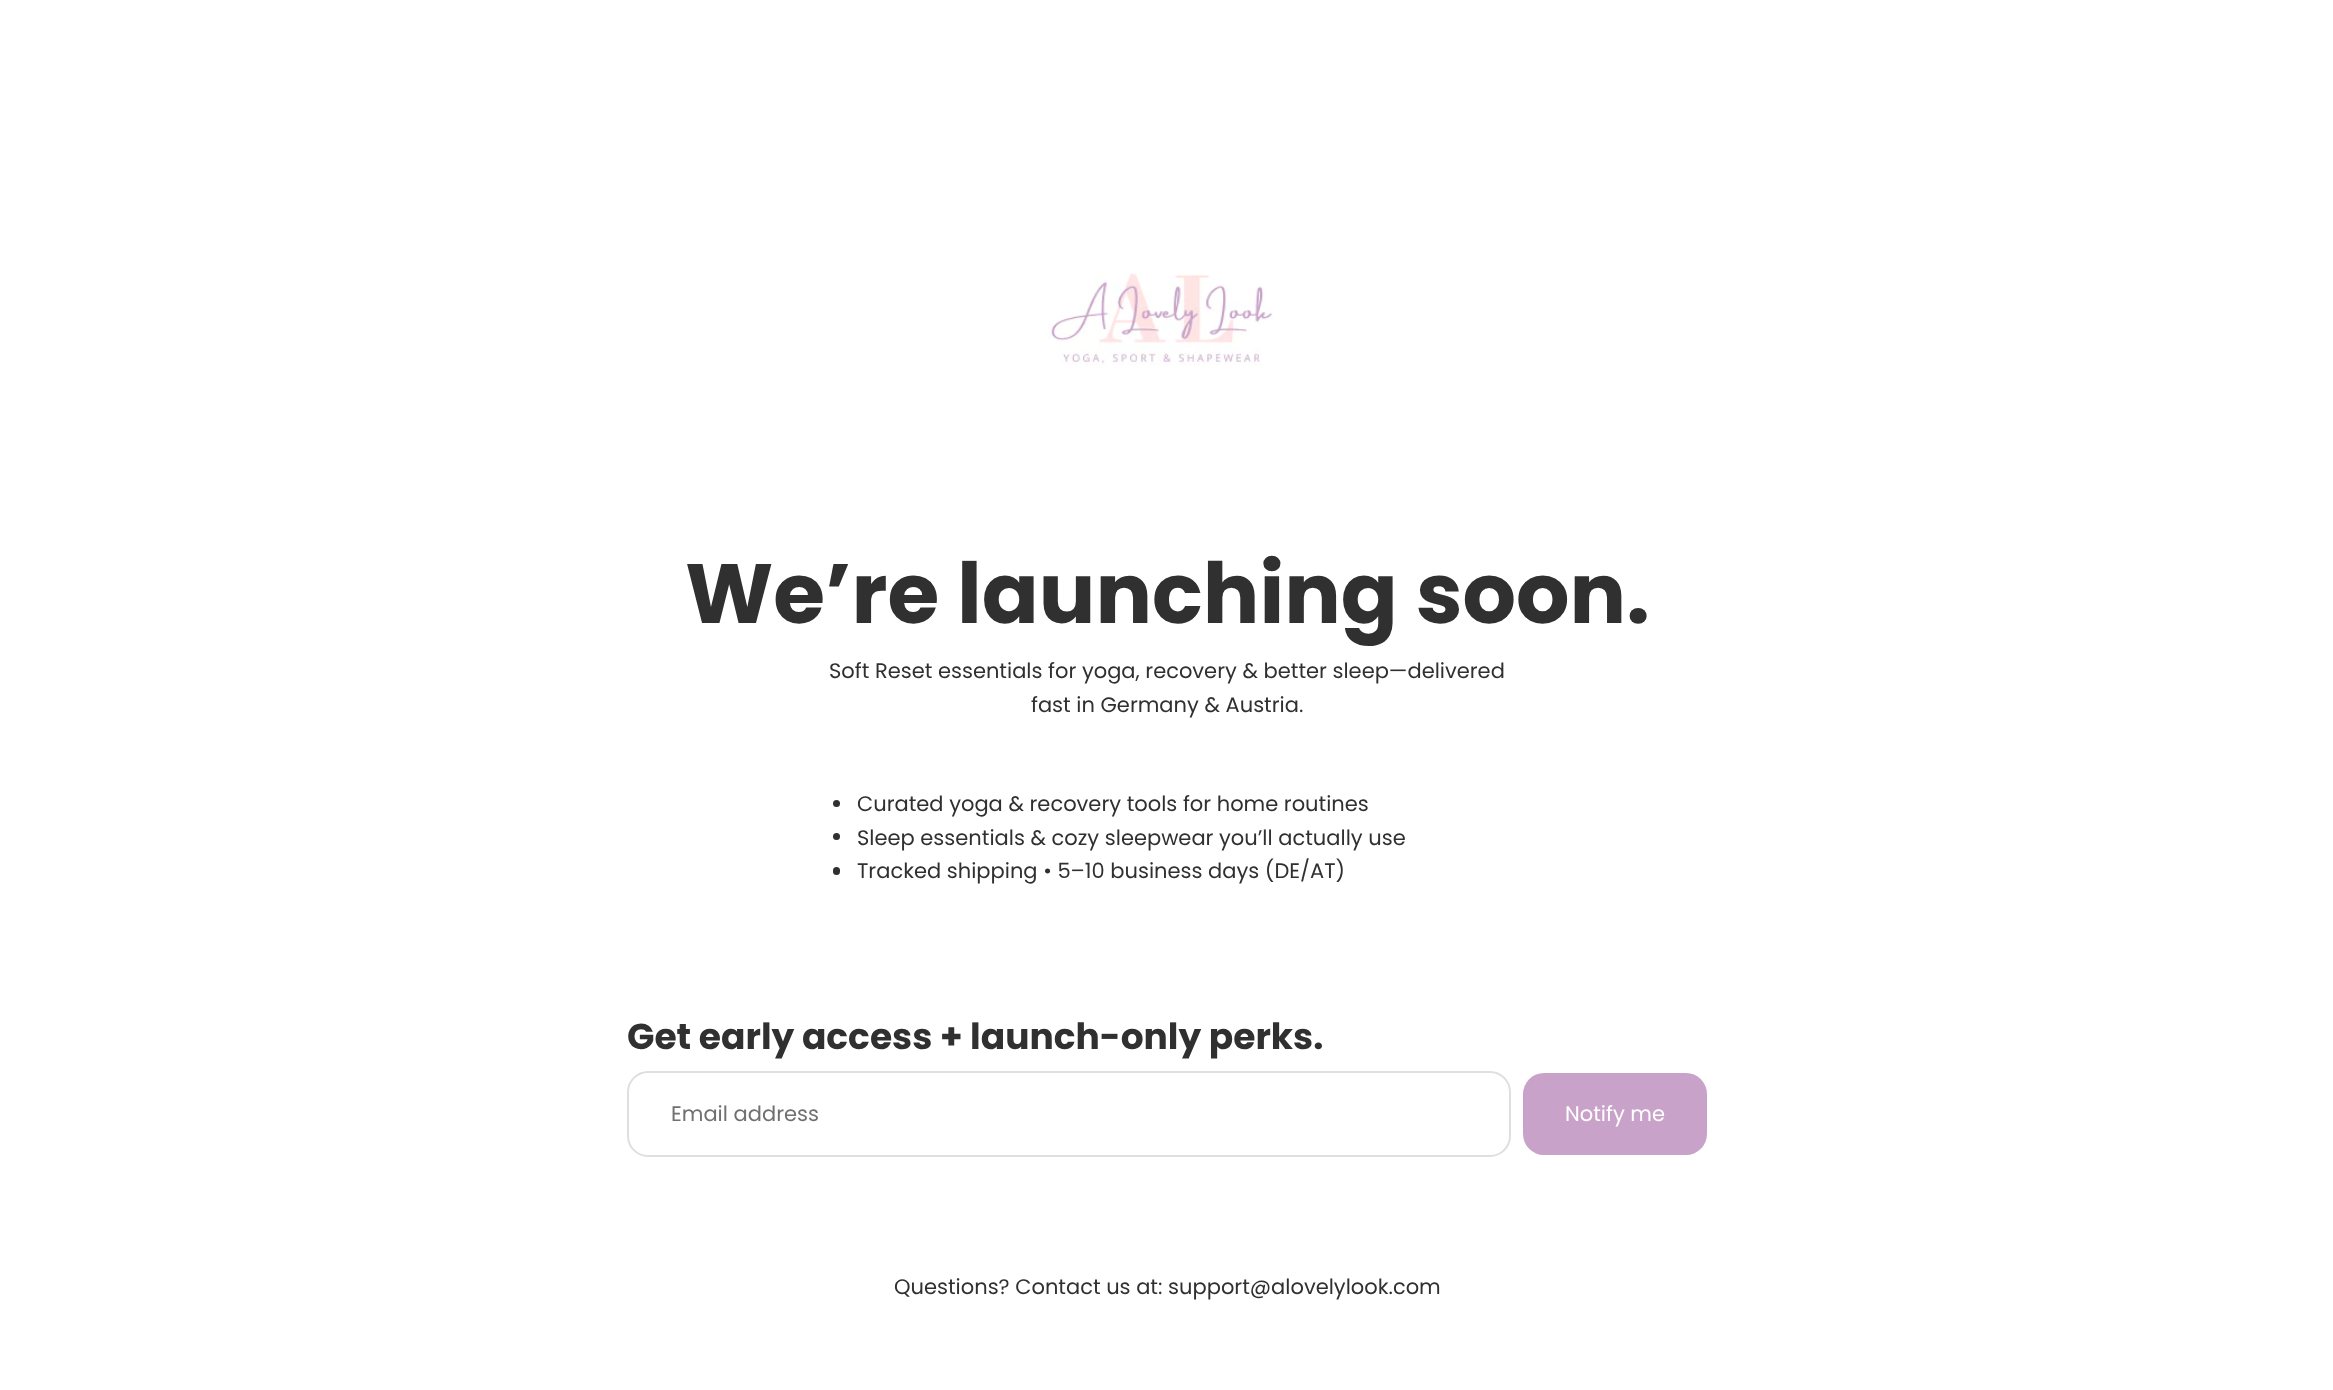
<svg xmlns="http://www.w3.org/2000/svg" width="2333" height="1390">
	<rect width="100%" height="100%" fill="#FFFFFF" />
	<image x="1048" y="273" width="225" height="92" href="assets/img1.png" />
	<text x="685" y="623" font-family="Poppins" font-size="84" font-weight="700" fill="#303030">We’re launching soon.</text>
	<g font-family="Poppins" font-size="21" fill="#303030">
		<text x="829" y="678">Soft Reset essentials for yoga, recovery &amp; better sleep—delivered</text>
		<text x="1031" y="712">fast in Germany &amp; Austria.</text>
	</g>
	<circle cx="836.5" cy="803.5" r="3.5" fill="#303030" />
	<text x="857" y="811" font-family="Poppins" font-size="21" fill="#303030">Curated yoga &amp; recovery tools for home routines</text>
	<circle cx="836.5" cy="836.5" r="3.5" fill="#303030" />
	<text x="857" y="845" font-family="Poppins" font-size="21" fill="#303030">Sleep essentials &amp; cozy sleepwear you’ll actually use</text>
	<rect x="833" y="867" width="7" height="8" rx="3.5" fill="#303030" />
	<text x="857" y="878" font-family="Poppins" font-size="21" fill="#303030">Tracked shipping • 5–10 business days (DE/AT)</text>
	<text x="627" y="1049" font-family="Poppins" font-size="36" font-weight="700" fill="#303030">Get early access + launch-only perks.</text>
	<rect x="628" y="1072" width="882" height="84" rx="20" fill="none" stroke="#DFDFDF" stroke-width="2" />
	<text x="671" y="1121" font-family="Poppins" font-size="21" fill="#707070">Email address</text>
	<rect x="1523" y="1073" width="184" height="82" rx="21" fill="#C8A2C8" />
	<text x="1565" y="1121" font-family="Poppins" font-size="21" fill="#FFFFFF">Notify me</text>
	<text x="894" y="1294" font-family="Poppins" font-size="21" fill="#303030">Questions? Contact us at: support@alovelylook.com</text>
</svg>
